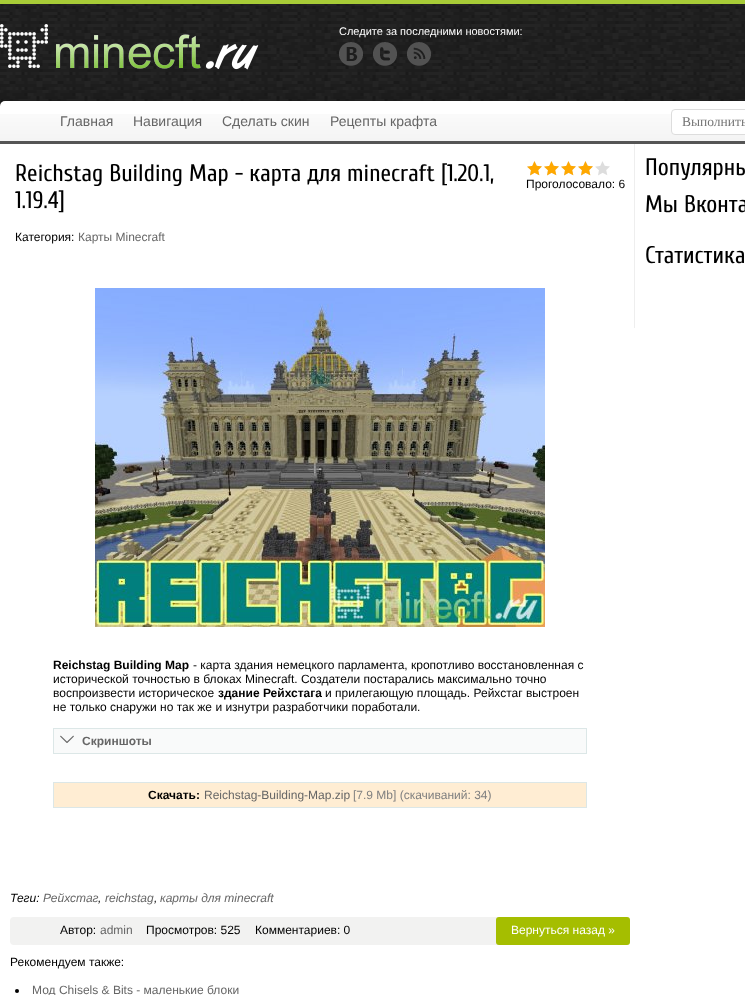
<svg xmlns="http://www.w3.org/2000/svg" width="745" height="995">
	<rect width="100%" height="100%" fill="#FFFFFF" />
	<image x="0" y="4" width="745" height="102" href="assets/img1.png" />
	<rect x="0" y="0" width="745" height="4" fill="#A8CC37" />
	<image x="0" y="24" width="259" height="46" href="assets/img2.png" />
	<text x="339" y="35" font-family="Liberation Sans" font-size="11" fill="#FFFFFF">Следите за последними новостями:</text>
	<image x="339" y="42" width="24" height="24" href="assets/img3.png" />
	<image x="373" y="42" width="24" height="24" href="assets/img4.png" />
	<image x="407" y="42" width="24" height="24" href="assets/img5.png" />
	<rect x="0" y="101" width="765" height="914" rx="5" fill="#000000" fill-opacity="0.2" filter="blur(5px)" />
	<rect x="0" y="101" width="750" height="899" rx="5" fill="#FFFFFF" />
	<image x="0" y="114" width="745" height="27" href="assets/img6.png" />
	<rect x="0" y="141" width="745" height="3" fill="#555555" />
	<g font-family="Liberation Sans" font-size="14" fill="#666666">
		<text x="60" y="126">Главная</text>
		<text x="133" y="126">Навигация</text>
		<text x="222" y="126">Сделать скин</text>
		<text x="330" y="126">Рецепты крафта</text>
	</g>
	<rect x="671.5" y="109.5" width="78" height="25" rx="3.5" fill="#FFFFFF" stroke="#DDDDDD" />
	<text x="682" y="126" font-family="Liberation Serif" font-size="13.5" fill="#757575">Выполнить</text>
	<g font-family="Cuprum" font-size="24" fill="#000000">
		<text x="15" y="181">Reichstag Building Map - карта для minecraft [1.20.1,</text>
		<text x="15" y="208">1.19.4]</text>
	</g>
	<image x="527" y="161" width="83" height="15" href="assets/img7.png" />
	<image x="527" y="161" width="66" height="15" href="assets/img8.png" />
	<g font-family="Liberation Sans" font-size="12" fill="#000000">
		<text x="526" y="188">Проголосовало: 6</text>
		<text x="15" y="241">Категория:</text>
	</g>
	<text x="78" y="241" font-family="Liberation Sans" font-size="12" fill="#666666">Карты Minecraft</text>
	<image x="95" y="288" width="450" height="339" href="assets/img9.png" />
	<text x="53" y="669" font-family="Liberation Sans" font-size="12" font-weight="700" fill="#000000">Reichstag Building Map</text>
	<g font-family="Liberation Sans" font-size="12" fill="#000000">
		<text x="193" y="669">- карта здания немецкого парламента, кропотливо восстановленная с</text>
		<text x="53" y="683">исторической точностью в блоках Minecraft. Создатели постарались максимально точно</text>
		<text x="53" y="697">воспроизвести историческое</text>
	</g>
	<text x="218" y="697" font-family="Liberation Sans" font-size="12" font-weight="700" fill="#000000">здание Рейхстага</text>
	<g font-family="Liberation Sans" font-size="12" fill="#000000">
		<text x="325" y="697">и прилегающую площадь. Рейхстаг выстроен</text>
		<text x="53" y="711">не только снаружи но так же и изнутри разработчики поработали.</text>
	</g>
	<rect x="53.5" y="728.5" width="533" height="25" fill="#F9FAFA" stroke="#DCE7E7" />
	<image x="60" y="735" width="14" height="8" href="assets/img10.png" />
	<text x="82" y="745" font-family="Liberation Sans" font-size="12" font-weight="700" fill="#666666">Скриншоты</text>
	<rect x="53.5" y="782.5" width="533" height="25" fill="#FFEDD3" stroke="#DCE7E7" />
	<text x="148" y="799" font-family="Liberation Sans" font-size="12" font-weight="700" fill="#000000">Скачать:</text>
	<text x="204" y="799" font-family="Liberation Sans" font-size="12" fill="#666666">Reichstag-Building-Map.zip</text>
	<text x="353" y="799" font-family="Liberation Sans" font-size="12" fill="#808080">[7.9 Mb] (cкачиваний: 34)</text>
	<text x="10" y="902" font-family="Liberation Sans" font-size="12" font-style="italic" fill="#000000">Теги:</text>
	<text x="43" y="902" font-family="Liberation Sans" font-size="12" font-style="italic" fill="#666666">Рейхстаг</text>
	<text x="98" y="902" font-family="Liberation Sans" font-size="12" font-style="italic" fill="#000000">,</text>
	<text x="105" y="902" font-family="Liberation Sans" font-size="12" font-style="italic" fill="#666666">reichstag</text>
	<text x="154" y="902" font-family="Liberation Sans" font-size="12" font-style="italic" fill="#000000">,</text>
	<text x="160" y="902" font-family="Liberation Sans" font-size="12" font-style="italic" fill="#666666">карты для minecraft</text>
	<rect x="10" y="917" width="620" height="28" rx="4" fill="#F2F2F1" />
	<text x="60" y="934" font-family="Liberation Sans" font-size="12" fill="#000000">Автор:</text>
	<text x="100" y="934" font-family="Liberation Sans" font-size="12" fill="#666666">admin</text>
	<g font-family="Liberation Sans" font-size="12" fill="#000000">
		<text x="146" y="934">Просмотров: 525</text>
		<text x="255" y="934">Комментариев: 0</text>
	</g>
	<rect x="496" y="917" width="134" height="28" rx="3" fill="#A5BE00" />
	<text x="511" y="934" font-family="Liberation Sans" font-size="12" fill="#FFFFFF">Вернуться назад »</text>
	<text x="10" y="966" font-family="Liberation Sans" font-size="12" fill="#000000">Рекомендуем также:</text>
	<circle cx="17" cy="991" r="2" fill="#000000" />
	<text x="32" y="994" font-family="Liberation Sans" font-size="12" fill="#666666">Мод Chisels &amp; Bits - маленькие блоки</text>
	<rect x="634" y="144" width="1" height="184" fill="#EEEEEE" />
	<g font-family="Cuprum" font-size="24" fill="#000000">
		<text x="645" y="175">Популярны</text>
		<text x="645" y="212">Мы Вконта</text>
		<text x="645" y="263">Статистика</text>
	</g>
</svg>
